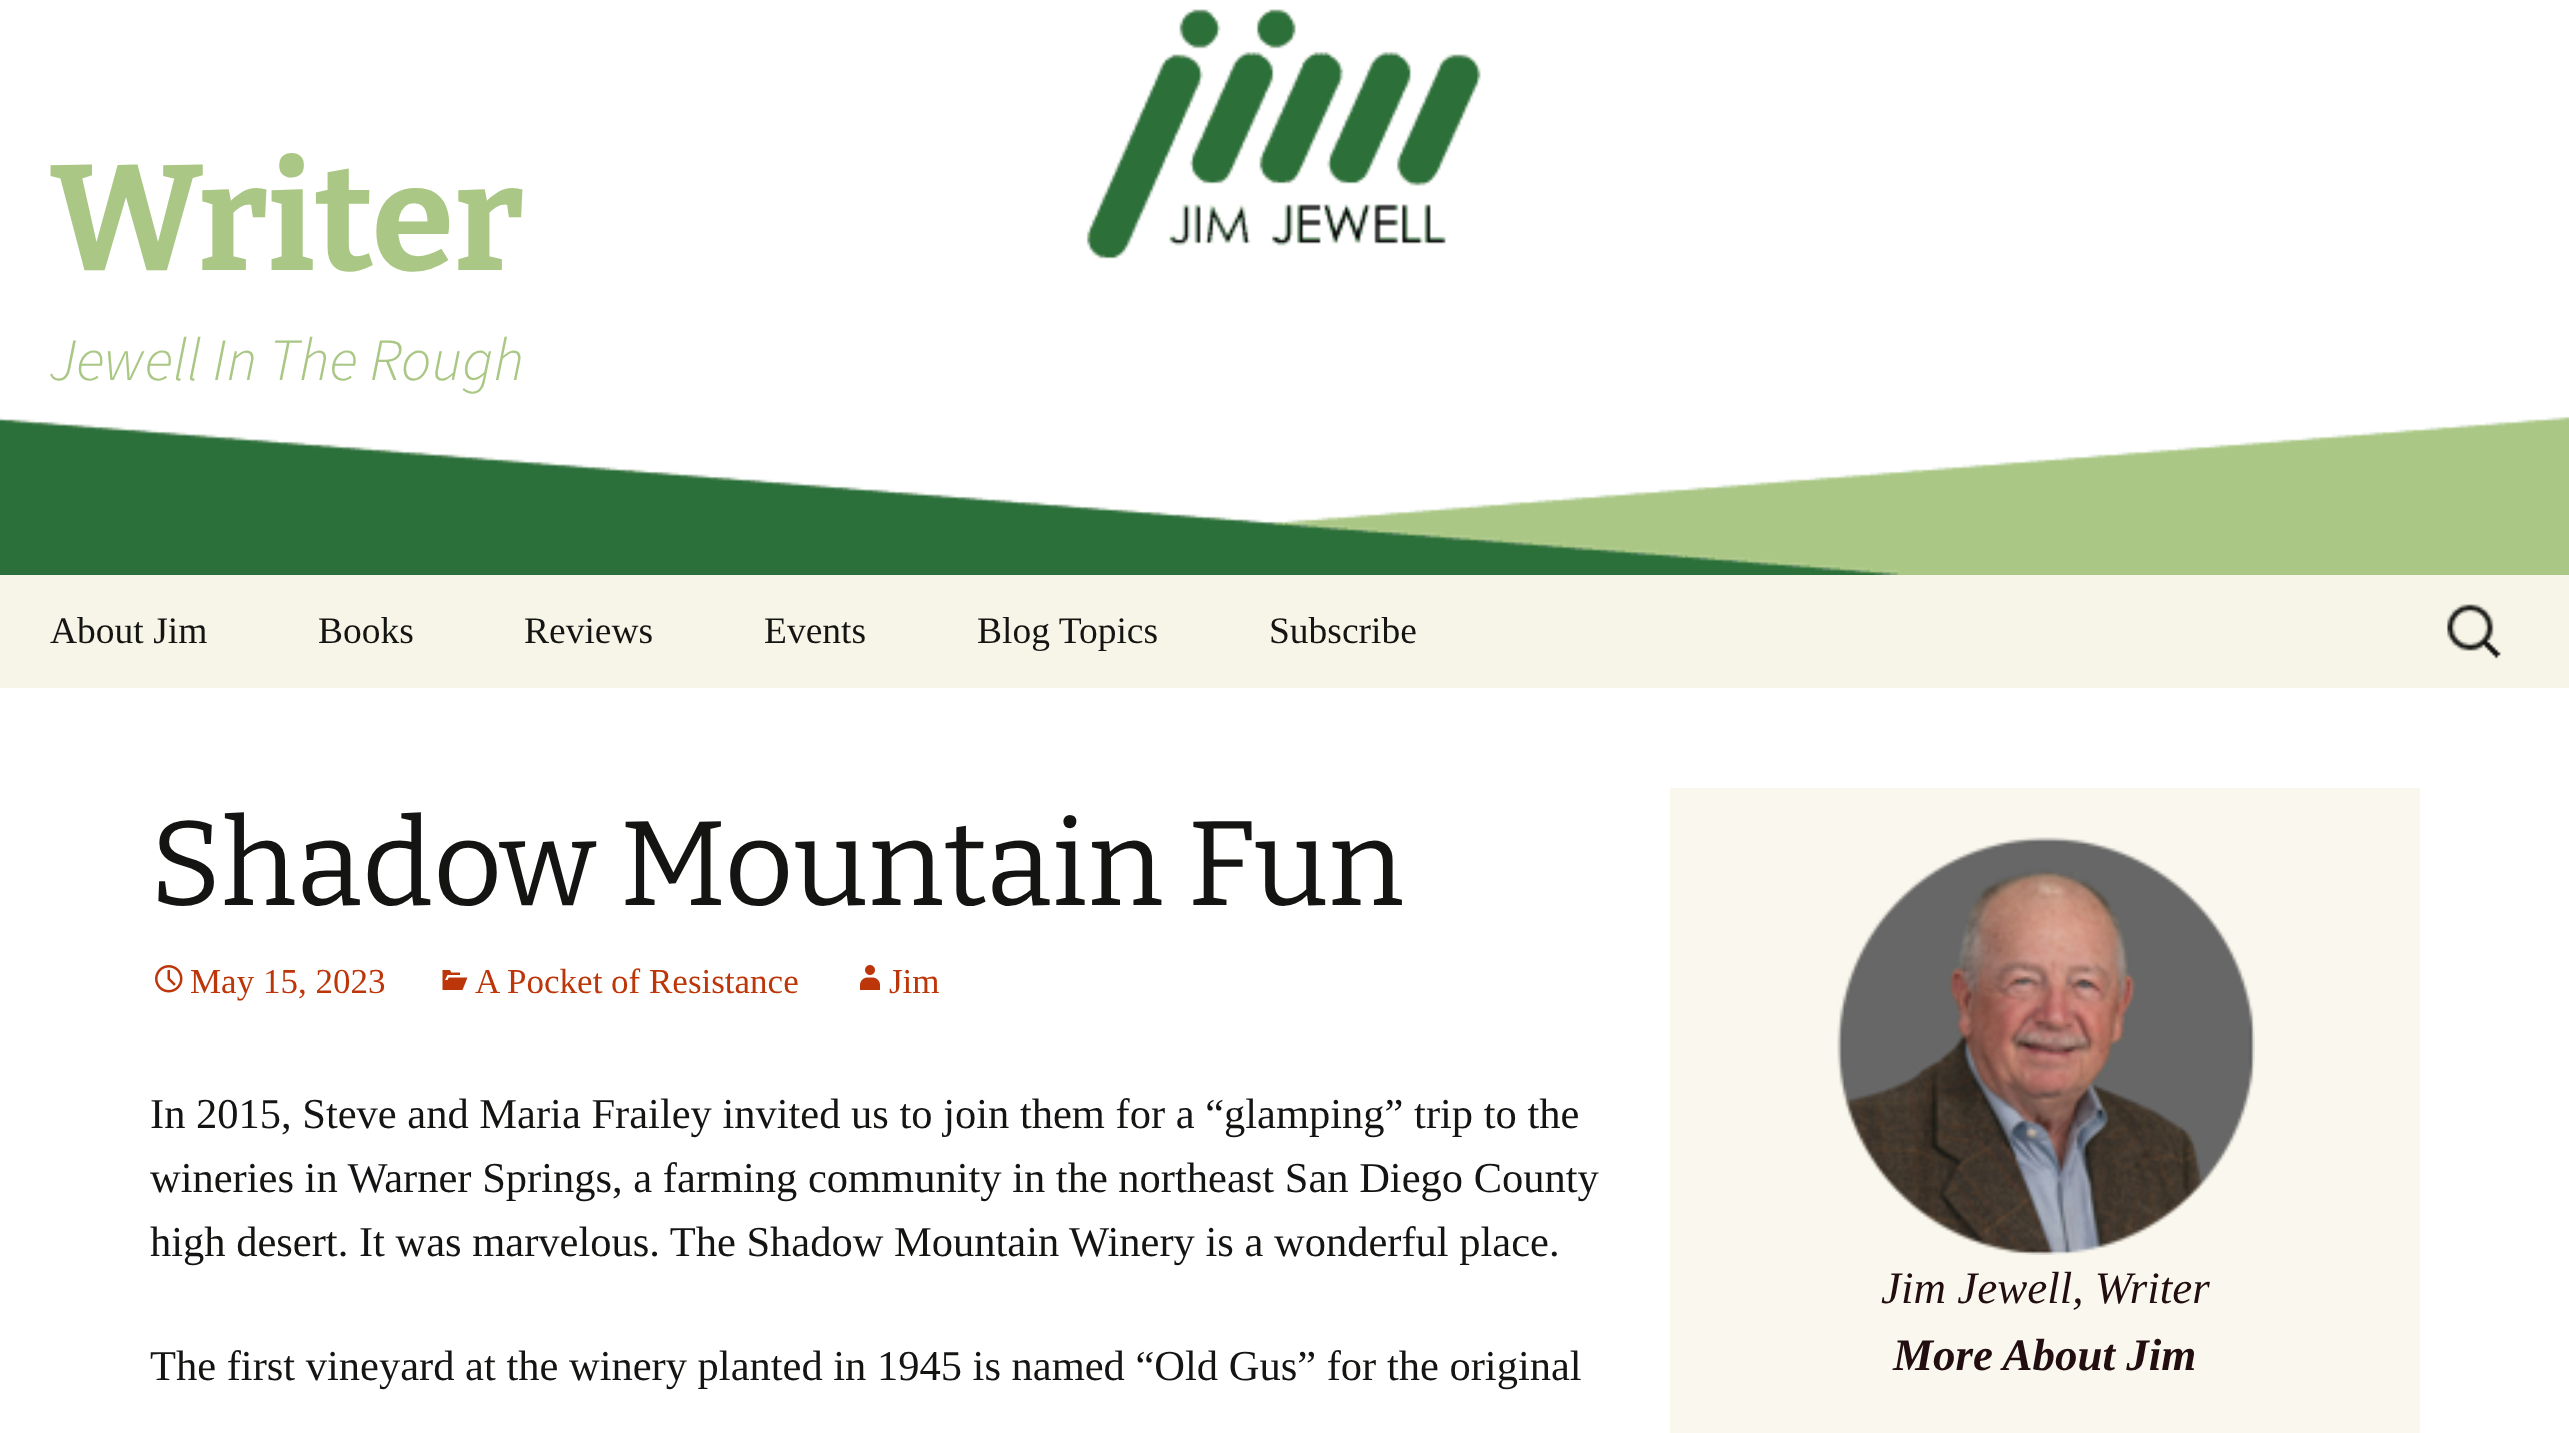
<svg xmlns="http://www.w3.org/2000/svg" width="2569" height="1433">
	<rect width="100%" height="100%" fill="#FFFFFF" />
	<image x="0" y="9" width="2569" height="566" href="assets/img1.png" />
	<text x="50" y="270" font-family="Bitter" font-size="150" font-weight="100" fill="#AAC785">Writer</text>
	<text x="50" y="380" font-family="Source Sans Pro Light" font-size="60" font-weight="300" font-style="italic" fill="#AAC785">Jewell In The Rough</text>
	<rect x="0" y="575" width="2569" height="113" fill="#F7F5E7" />
	<g font-family="Liberation Serif" font-size="37.5" fill="#141412">
		<text x="50" y="643">About Jim</text>
		<text x="318" y="643">Books</text>
		<text x="524" y="643">Reviews</text>
		<text x="764" y="643">Events</text>
		<text x="977" y="643">Blog Topics</text>
		<text x="1269" y="643">Subscribe</text>
	</g>
	<image x="2447" y="604" width="54" height="55" href="assets/img2.png" />
	<text x="150" y="905" font-family="'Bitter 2'" font-size="120" font-weight="100" fill="#141412">Shadow Mountain Fun</text>
	<image x="155" y="965" width="28" height="28" href="assets/img3.png" />
	<text x="190" y="993" font-family="Liberation Serif" font-size="35" fill="#BC360A">May 15, 2023</text>
	<image x="442" y="970" width="26" height="20" href="assets/img4.png" />
	<text x="475" y="993" font-family="Liberation Serif" font-size="35" fill="#BC360A">A Pocket of Resistance</text>
	<image x="860" y="965" width="20" height="25" href="assets/img5.png" />
	<text x="889" y="993" font-family="Liberation Serif" font-size="35" fill="#BC360A">Jim</text>
	<g font-family="Liberation Serif" font-size="42.5" fill="#141412">
		<text x="150" y="1128">In 2015, Steve and Maria Frailey invited us to join them for a “glamping” trip to the</text>
		<text x="150" y="1192">wineries in Warner Springs, a farming community in the northeast San Diego County</text>
		<text x="150" y="1256">high desert. It was marvelous. The Shadow Mountain Winery is a wonderful place.</text>
		<text x="150" y="1380">The first vineyard at the winery planted in 1945 is named “Old Gus” for the original</text>
	</g>
	<rect x="1670" y="788" width="750" height="645" fill="#FAF8EE" />
	<image x="1837" y="837" width="418" height="418" href="assets/img6.png" />
	<text x="1881" y="1303" font-family="Liberation Serif" font-size="45" font-style="italic" fill="#220E10">Jim Jewell, Writer</text>
	<text x="1893" y="1370" font-family="Liberation Serif" font-size="45" font-weight="700" font-style="italic" fill="#220E10">More About Jim</text>
</svg>
